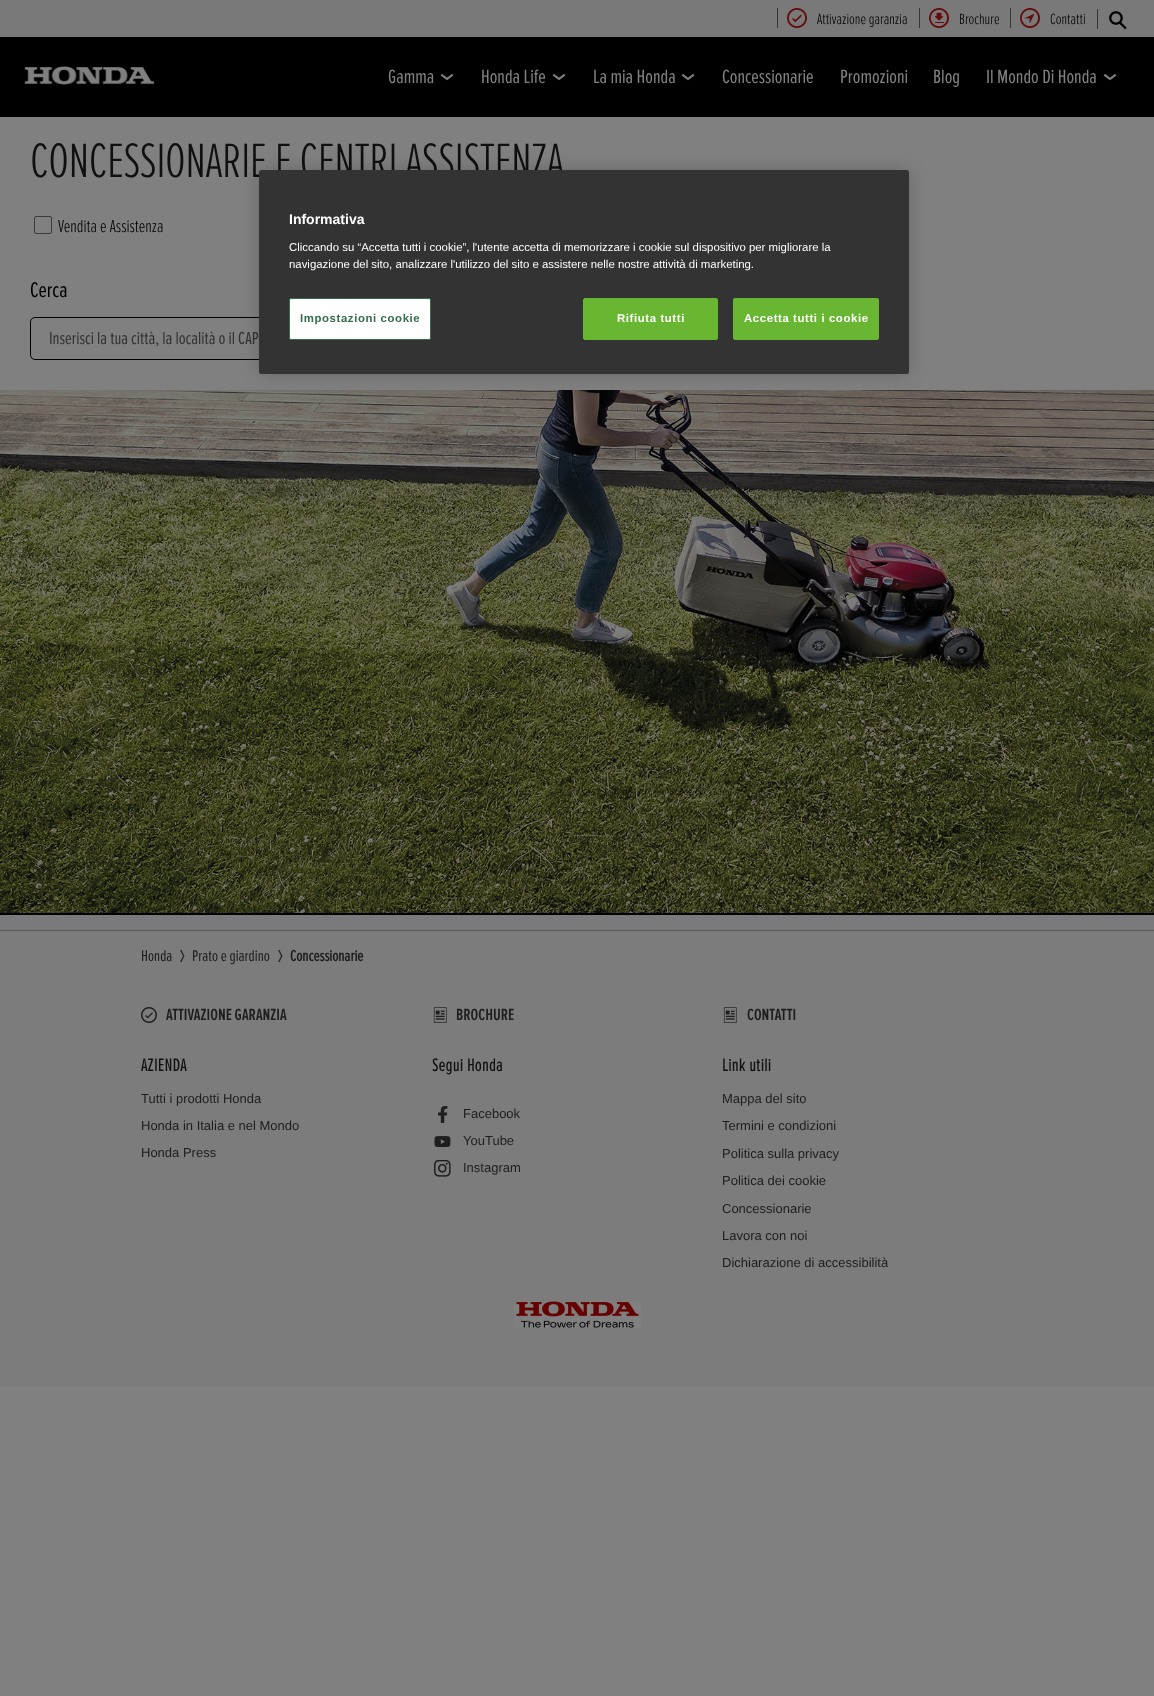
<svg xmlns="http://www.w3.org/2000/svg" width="1154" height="1696">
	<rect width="100%" height="100%" fill="#808080" />
	<rect x="0" y="915" width="1154" height="15" fill="#7A7A7C" />
	<rect x="0" y="0" width="1154" height="37" fill="#797979" />
	<rect x="777" y="8" width="1" height="20" fill="#353535" />
	<image x="787" y="8" width="20" height="20" href="assets/img1.png" />
	<text x="817" y="24" font-family="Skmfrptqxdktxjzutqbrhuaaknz" font-size="15.5" font-weight="300" fill="#000000">Attivazione garanzia</text>
	<rect x="919" y="8" width="1" height="20" fill="#353535" />
	<image x="929" y="8" width="20" height="20" href="assets/img2.png" />
	<text x="959" y="24" font-family="Skmfrptqxdktxjzutqbrhuaaknz" font-size="15.5" font-weight="300" fill="#000000">Brochure</text>
	<rect x="1010" y="8" width="1" height="20" fill="#353535" />
	<image x="1020" y="8" width="20" height="20" href="assets/img3.png" />
	<text x="1050" y="24" font-family="Skmfrptqxdktxjzutqbrhuaaknz" font-size="15.5" font-weight="300" fill="#000000">Contatti</text>
	<rect x="0" y="37" width="1154" height="80" fill="#000000" />
	<rect x="1097" y="9" width="1" height="20" fill="#353535" />
	<image x="1109" y="11" width="18" height="19" href="assets/img4.png" />
	<image x="24" y="66" width="130" height="19" href="assets/img5.png" />
	<text x="388" y="83" font-family="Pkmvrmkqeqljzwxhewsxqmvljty" font-size="20" fill="#808080">Gamma</text>
	<image x="440" y="73" width="14" height="8" href="assets/img6.png" />
	<text x="481" y="83" font-family="Pkmvrmkqeqljzwxhewsxqmvljty" font-size="20" fill="#808080">Honda Life</text>
	<image x="552" y="73" width="14" height="8" href="assets/img6.png" />
	<text x="593" y="83" font-family="Pkmvrmkqeqljzwxhewsxqmvljty" font-size="20" fill="#808080">La mia Honda</text>
	<image x="681" y="73" width="14" height="8" href="assets/img6.png" />
	<g font-family="Pkmvrmkqeqljzwxhewsxqmvljty" font-size="20" fill="#808080">
		<text x="722" y="83">Concessionarie</text>
		<text x="840" y="83">Promozioni</text>
		<text x="933" y="83">Blog</text>
		<text x="986" y="83">Il Mondo Di Honda</text>
	</g>
	<image x="1103" y="73" width="14" height="8" href="assets/img6.png" />
	<text x="30" y="177" font-family="Skmfrptqxdktxjzutqbrhuaaknz" font-size="50" font-weight="300" letter-spacing="-0.5" fill="#101010">CONCESSIONARIE E CENTRI ASSISTENZA</text>
	<rect x="34.5" y="216.5" width="17" height="17" rx="1.5" fill="none" stroke="#3B3B3B" />
	<text x="58" y="232" font-family="Skmfrptqxdktxjzutqbrhuaaknz" font-size="18" font-weight="300" fill="#000000">Vendita e Assistenza</text>
	<text x="30" y="297" font-family="Pkmvrmkqeqljzwxhewsxqmvljty" font-size="22" fill="#000000">Cerca</text>
	<rect x="30.5" y="317.5" width="409" height="42" rx="4.5" fill="none" stroke="#000000" />
	<text x="49" y="344" font-family="Pkmvrmkqeqljzwxhewsxqmvljty" font-size="18" fill="#333333">Inserisci la tua città, la località o il CAP</text>
	<rect x="0" y="913" width="1154" height="2" fill="#000000" />
	<image x="0" y="390" width="1154" height="523" href="assets/img7.png" />
	<rect x="0" y="931" width="1154" height="455" fill="#7C7C7C" />
	<rect x="0" y="930" width="1154" height="1" fill="#585858" />
	<text x="141" y="961" font-family="Pkmvrmkqeqljzwxhewsxqmvljty" font-size="16" fill="#1E1E1E">Honda</text>
	<image x="180" y="950" width="5" height="12" href="assets/img8.png" />
	<text x="192" y="961" font-family="Pkmvrmkqeqljzwxhewsxqmvljty" font-size="16" fill="#1E1E1E">Prato e giardino</text>
	<image x="278" y="950" width="5" height="12" href="assets/img8.png" />
	<text x="290" y="961" font-family="Pkmvrmkqeqljzwxhewsxqmvljty" font-size="16" font-weight="700" fill="#1E1E1E">Concessionarie</text>
	<image x="141" y="1007" width="16" height="16" href="assets/img9.png" />
	<text x="166" y="1020" font-family="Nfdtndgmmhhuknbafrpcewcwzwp" font-size="16.75" font-weight="600" fill="#1E1E1E">ATTIVAZIONE GARANZIA</text>
	<image x="433" y="1007" width="14" height="16" href="assets/img10.png" />
	<text x="456" y="1020" font-family="Nfdtndgmmhhuknbafrpcewcwzwp" font-size="16.75" font-weight="600" fill="#1E1E1E">BROCHURE</text>
	<image x="723" y="1007" width="14" height="16" href="assets/img10.png" />
	<text x="747" y="1020" font-family="Nfdtndgmmhhuknbafrpcewcwzwp" font-size="16.75" font-weight="600" fill="#1E1E1E">CONTATTI</text>
	<text x="141" y="1071" font-family="Skmfrptqxdktxjzutqbrhuaaknz" font-size="18" font-weight="700" letter-spacing="0.5" fill="#101010">AZIENDA</text>
	<g font-family="Liberation Sans" font-size="13" fill="#1E1E1E">
		<text x="141" y="1103">Tutti i prodotti Honda</text>
		<text x="141" y="1130">Honda in Italia e nel Mondo</text>
		<text x="141" y="1157">Honda Press</text>
	</g>
	<text x="432" y="1071" font-family="Skmfrptqxdktxjzutqbrhuaaknz" font-size="18" font-weight="700" letter-spacing="0.5" fill="#101010">Segui Honda</text>
	<image x="438" y="1106" width="10" height="17" href="assets/img11.png" />
	<text x="463" y="1118" font-family="Liberation Sans" font-size="13" fill="#1E1E1E">Facebook</text>
	<image x="434" y="1136" width="17" height="12" href="assets/img12.png" />
	<text x="463" y="1145" font-family="Liberation Sans" font-size="13" fill="#1E1E1E">YouTube</text>
	<image x="434" y="1160" width="17" height="17" href="assets/img13.png" />
	<text x="463" y="1172" font-family="Liberation Sans" font-size="13" fill="#1E1E1E">Instagram</text>
	<text x="722" y="1071" font-family="Skmfrptqxdktxjzutqbrhuaaknz" font-size="18" font-weight="700" letter-spacing="0.5" fill="#101010">Link utili</text>
	<g font-family="Liberation Sans" font-size="13" fill="#1E1E1E">
		<text x="722" y="1103">Mappa del sito</text>
		<text x="722" y="1130">Termini e condizioni</text>
		<text x="722" y="1158">Politica sulla privacy</text>
		<text x="722" y="1185">Politica dei cookie</text>
		<text x="722" y="1213">Concessionarie</text>
		<text x="722" y="1240">Lavora con noi</text>
		<text x="722" y="1267">Dichiarazione di accessibilità</text>
	</g>
	<image x="514" y="1301" width="127" height="27" href="assets/img14.png" />
	<rect x="259" y="170" width="650" height="204" rx="2.5" fill="#000000" fill-opacity="0.2" filter="blur(9px)" />
	<rect x="259" y="170" width="650" height="204" rx="2.5" fill="#333333" />
	<text x="289" y="224" font-family="Liberation Sans" font-size="14" font-weight="700" fill="#FFFFFF">Informativa</text>
	<g font-family="Liberation Sans" font-size="11.4" fill="#FFFFFF">
		<text x="289" y="251">Cliccando su “Accetta tutti i cookie”, l'utente accetta di memorizzare i cookie sul dispositivo per migliorare la</text>
		<text x="289" y="268">navigazione del sito, analizzare l'utilizzo del sito e assistere nelle nostre attività di marketing.</text>
	</g>
	<rect x="289.5" y="298.5" width="141" height="41" rx="1.5" fill="#FFFFFF" stroke="#346E4A" />
	<text x="300" y="322" font-family="Liberation Sans" font-size="11.4" font-weight="700" letter-spacing="0.6" fill="#346E4A">Impostazioni cookie</text>
	<rect x="583.5" y="298.5" width="134" height="41" rx="1.5" fill="#68B631" stroke="#68B631" />
	<text x="617" y="322" font-family="Liberation Sans" font-size="11.4" font-weight="700" letter-spacing="0.6" fill="#FFFFFF">Rifiuta tutti</text>
	<rect x="733.5" y="298.5" width="145" height="41" rx="1.5" fill="#68B631" stroke="#68B631" />
	<text x="744" y="322" font-family="Liberation Sans" font-size="11.4" font-weight="700" letter-spacing="0.6" fill="#FFFFFF">Accetta tutti i cookie</text>
</svg>
